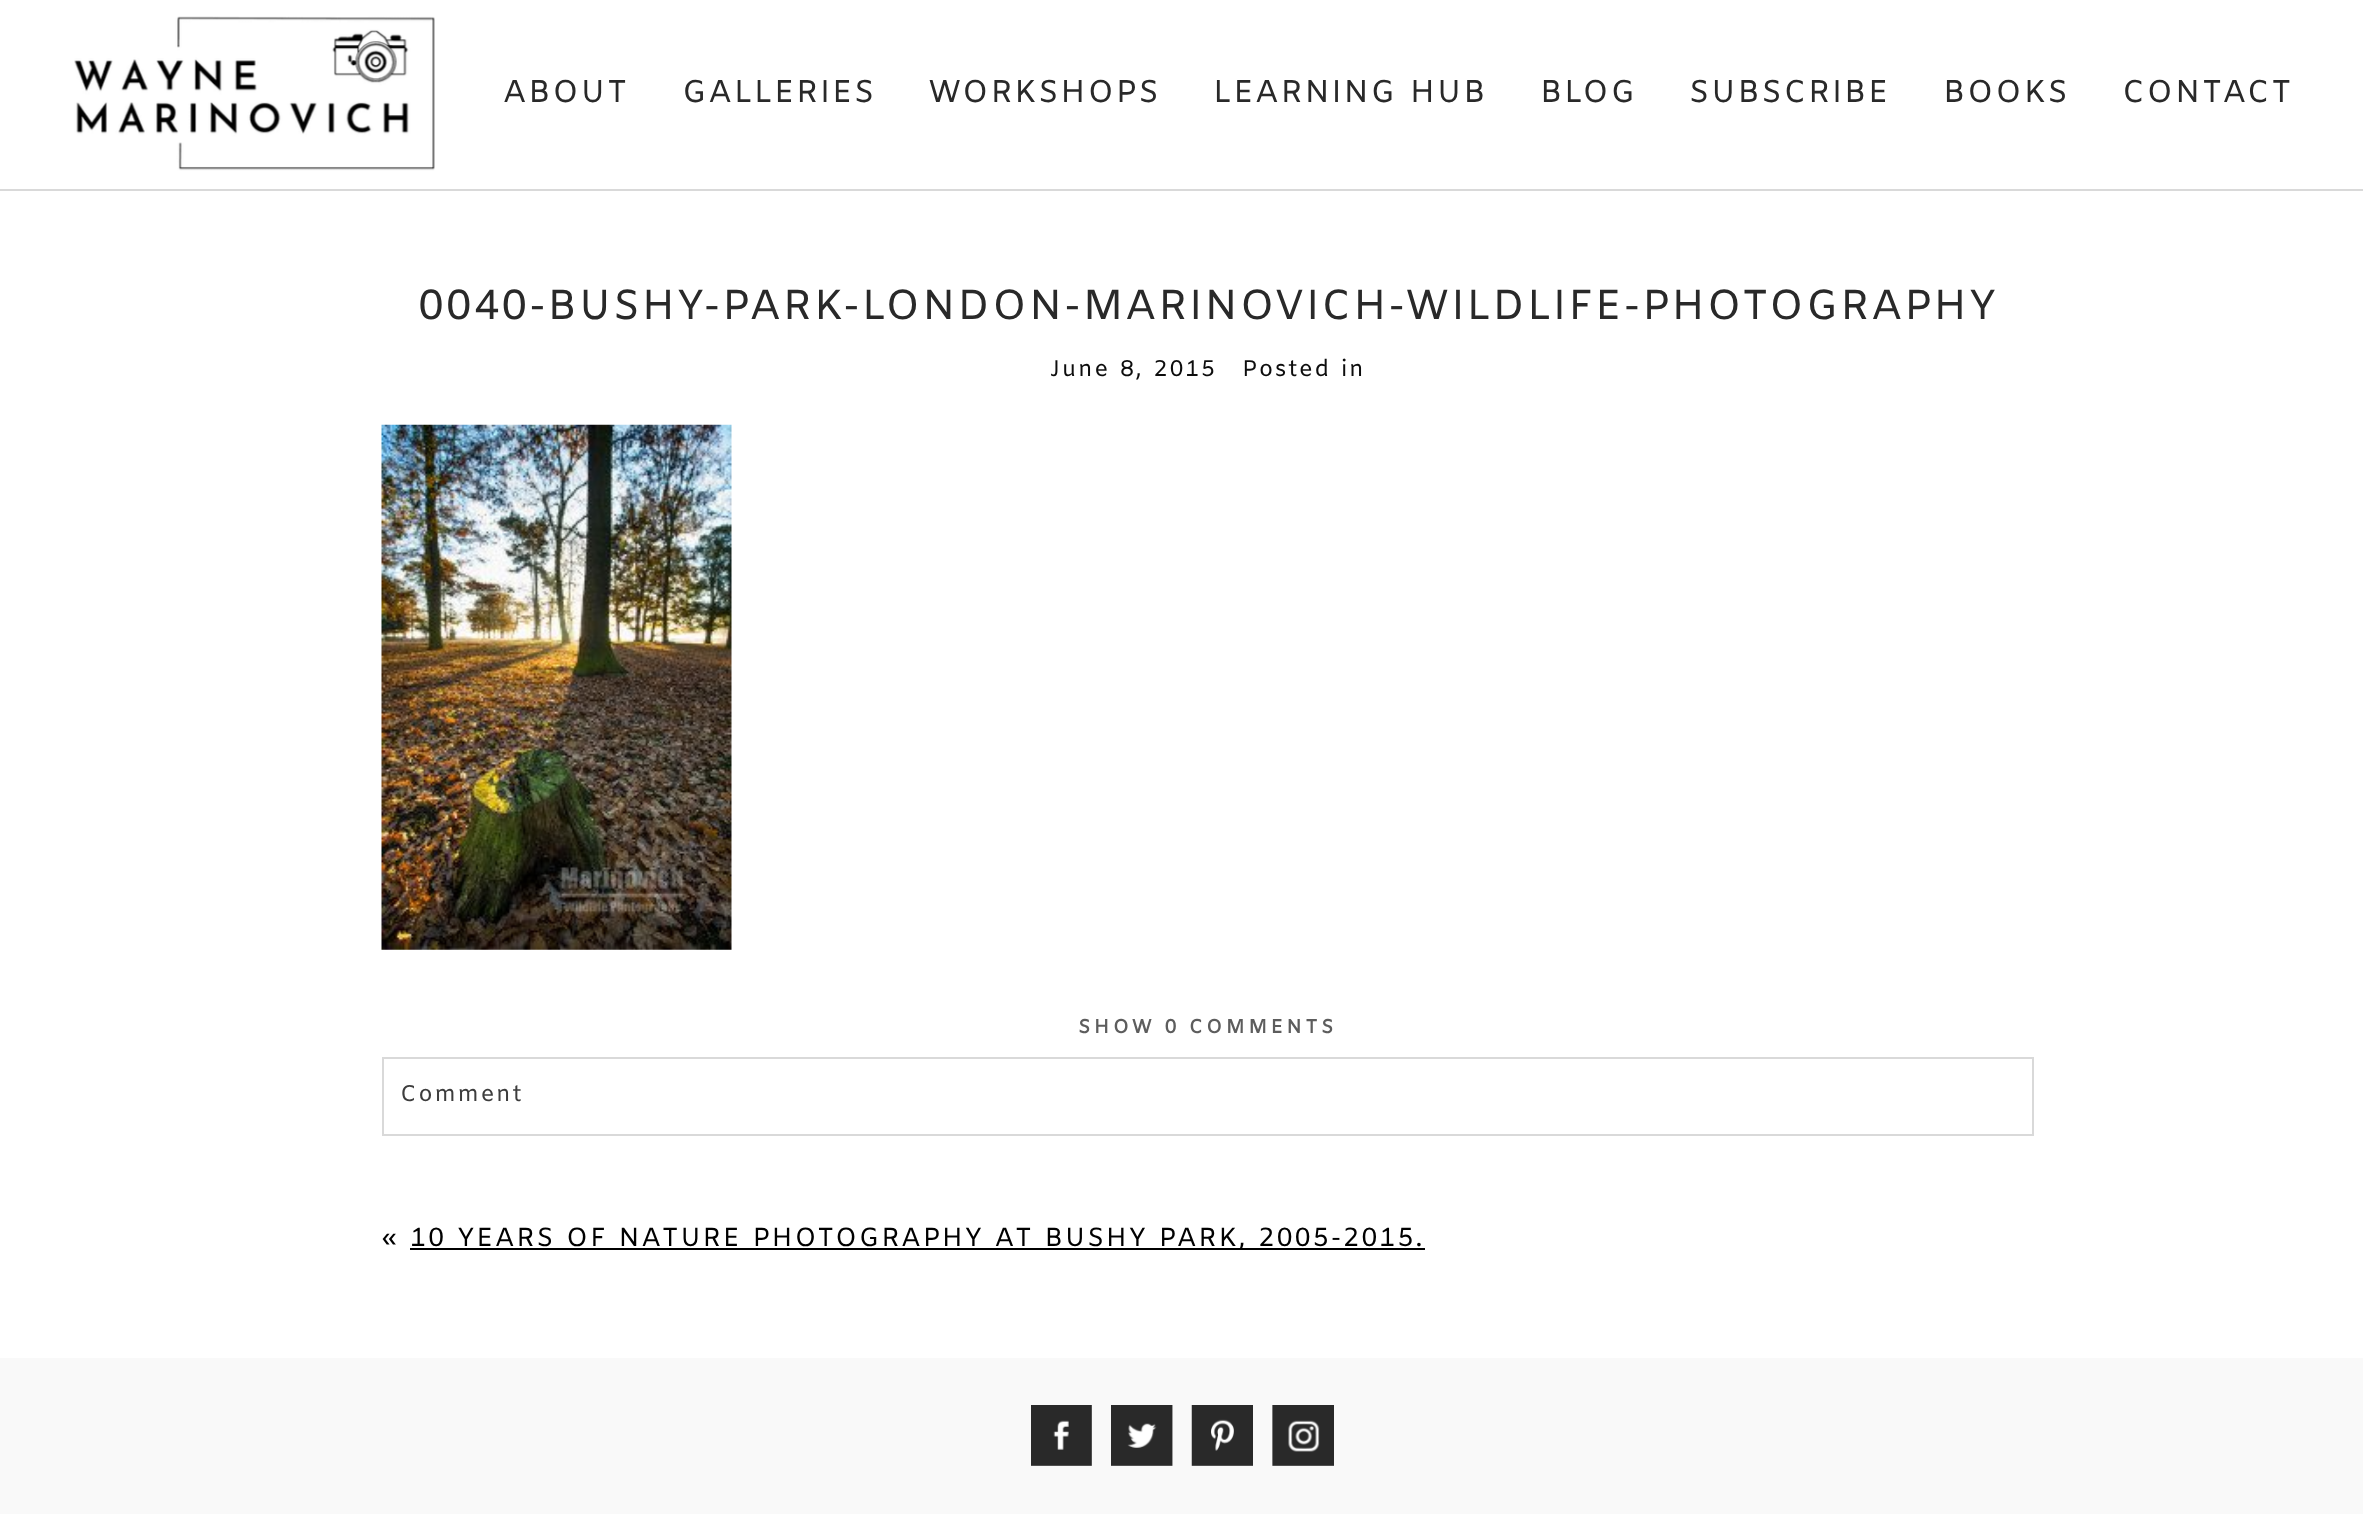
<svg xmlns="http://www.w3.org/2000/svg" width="2363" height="1533">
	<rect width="100%" height="100%" fill="#FFFFFF" />
	<rect x="0" y="189" width="2363" height="2" fill="#D9D9D9" />
	<image x="74" y="16" width="361" height="155" href="assets/img1.png" />
	<g font-family="Amiko" font-size="31.5" letter-spacing="1.9" fill="#292929">
		<text x="503" y="102">ABOUT</text>
		<text x="682" y="102">GALLERIES</text>
		<text x="928" y="102">WORKSHOPS</text>
		<text x="1213" y="102" word-spacing="2">LEARNING HUB</text>
		<text x="1540" y="102">BLOG</text>
		<text x="1689" y="102">SUBSCRIBE</text>
		<text x="1943" y="102">BOOKS</text>
		<text x="2122" y="102">CONTACT</text>
	</g>
	<text x="418" y="319" font-family="Amiko" font-size="42" letter-spacing="1.68" fill="#292929">0040-BUSHY-PARK-LONDON-MARINOVICH-WILDLIFE-PHOTOGRAPHY</text>
	<g font-family="Amiko" font-size="22.75" letter-spacing="1.75" fill="#0D0D0D">
		<text x="1050" y="376" word-spacing="2">June 8, 2015</text>
		<text x="1242" y="376" word-spacing="2">Posted in</text>
	</g>
	<image x="381" y="424" width="351" height="526" href="assets/img2.png" />
	<text x="1078" y="1033" font-family="Amiko" font-size="19.25" font-weight="700" letter-spacing="3.5" fill="#5D5D5D">SHOW 0 COMMENTS</text>
	<rect x="383" y="1058" width="1650" height="77" fill="none" stroke="#D9D9D9" stroke-width="2" />
	<text x="400" y="1101" font-family="Amiko" font-size="22.75" letter-spacing="1.75" fill="#3D3D3D">Comment</text>
	<text x="382" y="1246" font-family="Amiko" font-size="26.25" letter-spacing="1.85" fill="#000000">«</text>
	<rect x="410" y="1248" width="1015" height="2" fill="#000000" />
	<text x="410" y="1246" word-spacing="1.75" font-family="Amiko" font-size="26.25" letter-spacing="1.85" fill="#000000">10 YEARS OF NATURE PHOTOGRAPHY AT BUSHY PARK, 2005-2015.</text>
	<rect x="0" y="1358" width="2363" height="156" fill="#F9F9F9" />
	<image x="1031" y="1405" width="61" height="61" href="assets/img3.png" />
	<image x="1111" y="1405" width="62" height="61" href="assets/img4.png" />
	<image x="1191" y="1405" width="62" height="61" href="assets/img5.png" />
	<image x="1272" y="1405" width="62" height="61" href="assets/img6.png" />
</svg>
